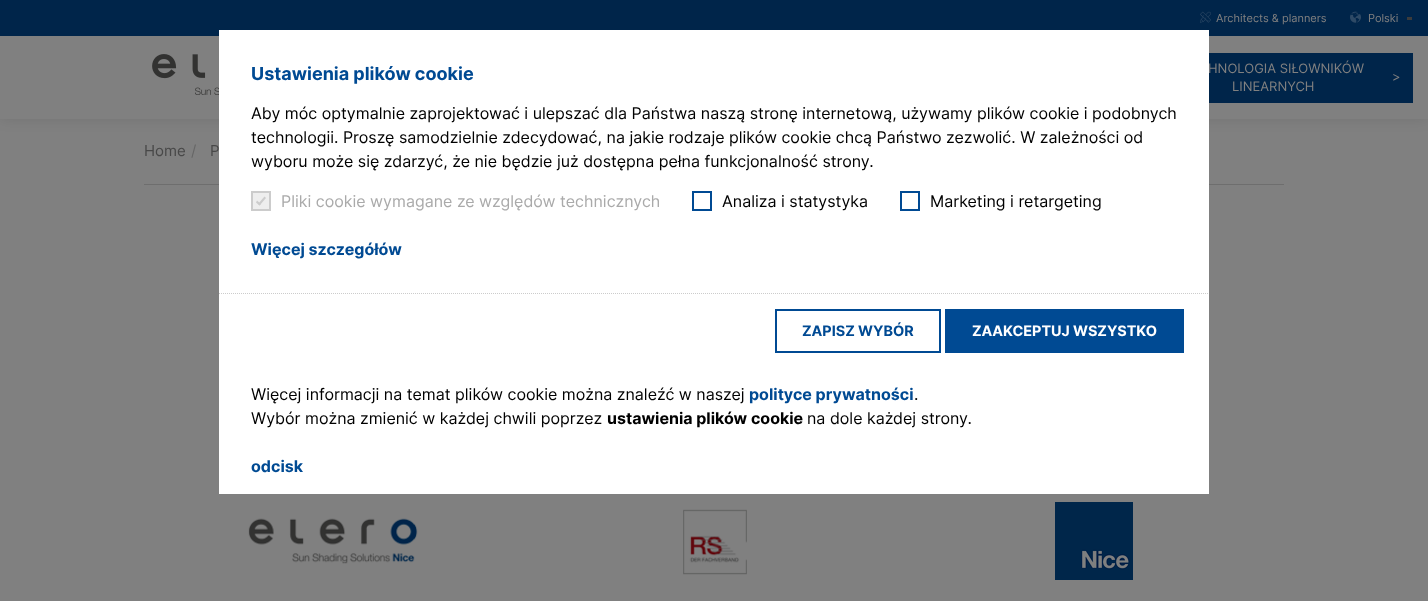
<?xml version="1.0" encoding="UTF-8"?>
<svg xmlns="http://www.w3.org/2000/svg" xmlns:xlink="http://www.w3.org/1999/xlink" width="1428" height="601">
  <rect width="100%" height="100%" fill="#808080" />
  <rect width="1428" height="119" fill="#000000" fill-opacity="0.1" filter="blur(7px)" />
  <rect width="1428" height="36" fill="#00254a" />
  <image x="1200" y="11" width="11" height="12" xlink:href="image1.png" />
  <image x="1350" y="11" width="11" height="12" xlink:href="image2.png" />
  <rect x="1407" y="17" width="5" height="3" fill="#3c3c3c" />
  <rect y="36" width="1428" height="83" fill="#808080" />
  <image x="152" y="54" width="67" height="41" xlink:href="image3.png" />
  <rect x="1209" y="53" width="204" height="50" fill="#00254a" />
  <rect x="144" y="184" width="1140" height="1" fill="#6e6e6e" />
  <image x="248" y="518" width="170" height="46" xlink:href="image4.png" />
  <image x="683" y="509" width="64" height="66" xlink:href="image5.png" />
  <image x="1055" y="502" width="78" height="78" xlink:href="image6.png" />
  <rect x="219" y="30" width="990" height="464" fill="#ffffff" />
  <rect x="252" y="192" width="18" height="18" fill="#eeeeee" stroke="#cccccc" stroke-width="2" />
  <path d="M 258 204 l 6.5 -7.5 l 1.5 1.5 l -6.5 7.5 z" fill="#cccccc" />
  <path d="M 256 202.5 l 1 -2 l 4 3.5 l -1.5 1.5 z" fill="#cccccc" />
  <rect x="693" y="192" width="18" height="18" fill="none" stroke="#004a93" stroke-width="2" />
  <rect x="901" y="192" width="18" height="18" fill="none" stroke="#004a93" stroke-width="2" />
  <path d="M 219 293.5 h 990" fill="none" stroke="#cccccc" stroke-dasharray="1 1" />
  <rect x="776" y="310" width="164" height="42" fill="none" stroke="#004a93" stroke-width="2" />
  <rect x="945" y="309" width="239" height="44" fill="#004a93" />
  <text x="1216" y="22" style="font-family: Inter; font-size: 11px; fill: #808080">Architects &amp; planners</text>
  <text x="1368" y="22" style="font-family: Inter; font-size: 11px; fill: #808080">Polski</text>
  <text x="1208" y="73" style="font-family: Inter; font-size: 13px; fill: #808080">HNOLOGIA SIŁOWNIKÓW</text>
  <text x="1392" y="81" style="font-family: Inter; font-size: 13px; fill: #808080">&gt;</text>
  <text x="1232" y="91" style="font-family: Inter; font-size: 13px; fill: #808080">LINEARNYCH</text>
  <text x="144" y="156" style="font-family: Inter; font-size: 15px; fill: #484848">Home</text>
  <text x="191" y="156" style="font-family: Inter; font-size: 15px; fill: #666666">/</text>
  <text x="210" y="156" style="font-family: Inter; font-size: 15px; fill: #484848">P</text>
  <text x="251" y="80" style="font-family: Inter; font-size: 18px; font-weight: bold; fill: #004a93">Ustawienia plików cookie</text>
  <text x="251" y="119" style="font-family: Inter; font-size: 16px; fill: #000000">Aby móc optymalnie zaprojektować i ulepszać dla Państwa naszą stronę internetową, używamy plików cookie i podobnych</text>
  <text x="251" y="143" style="font-family: Inter; font-size: 16px; fill: #000000">technologii. Proszę samodzielnie zdecydować, na jakie rodzaje plików cookie chcą Państwo zezwolić. W zależności od</text>
  <text x="251" y="167" style="font-family: Inter; font-size: 16px; fill: #000000">wyboru może się zdarzyć, że nie będzie już dostępna pełna funkcjonalność strony.</text>
  <text x="281" y="207" style="font-family: Inter; font-size: 16px; fill: #aaaaaa">Pliki cookie wymagane ze względów technicznych</text>
  <text x="722" y="207" style="font-family: Inter; font-size: 16px; fill: #000000">Analiza i statystyka</text>
  <text x="930" y="207" style="font-family: Inter; font-size: 16px; fill: #000000">Marketing i retargeting</text>
  <text x="251" y="255" style="font-family: Inter; font-size: 16px; font-weight: bold; fill: #004a93">Więcej szczegółów</text>
  <text x="802" y="336" style="font-family: Inter; font-size: 14.4px; font-weight: bold; fill: #004a93">ZAPISZ WYBÓR</text>
  <text x="972" y="336" style="font-family: Inter; font-size: 14.4px; font-weight: bold; fill: #ffffff">ZAAKCEPTUJ WSZYSTKO</text>
  <text x="251" y="400" style="font-family: Inter; font-size: 16px; fill: #000000">Więcej informacji na temat plików cookie można znaleźć w naszej</text>
  <text x="749" y="400" style="font-family: Inter; font-size: 16px; font-weight: bold; fill: #004a93">polityce prywatności</text>
  <text x="914" y="400" style="font-family: Inter; font-size: 16px; fill: #000000">.</text>
  <text x="251" y="424" style="font-family: Inter; font-size: 16px; fill: #000000">Wybór można zmienić w każdej chwili poprzez</text>
  <text x="607" y="424" style="font-family: Inter; font-size: 16px; font-weight: bold; fill: #000000">ustawienia plików cookie</text>
  <text x="807" y="424" style="font-family: Inter; font-size: 16px; fill: #000000">na dole każdej strony.</text>
  <text x="251" y="472" style="font-family: Inter; font-size: 16px; font-weight: bold; fill: #004a93">odcisk</text>
</svg>
